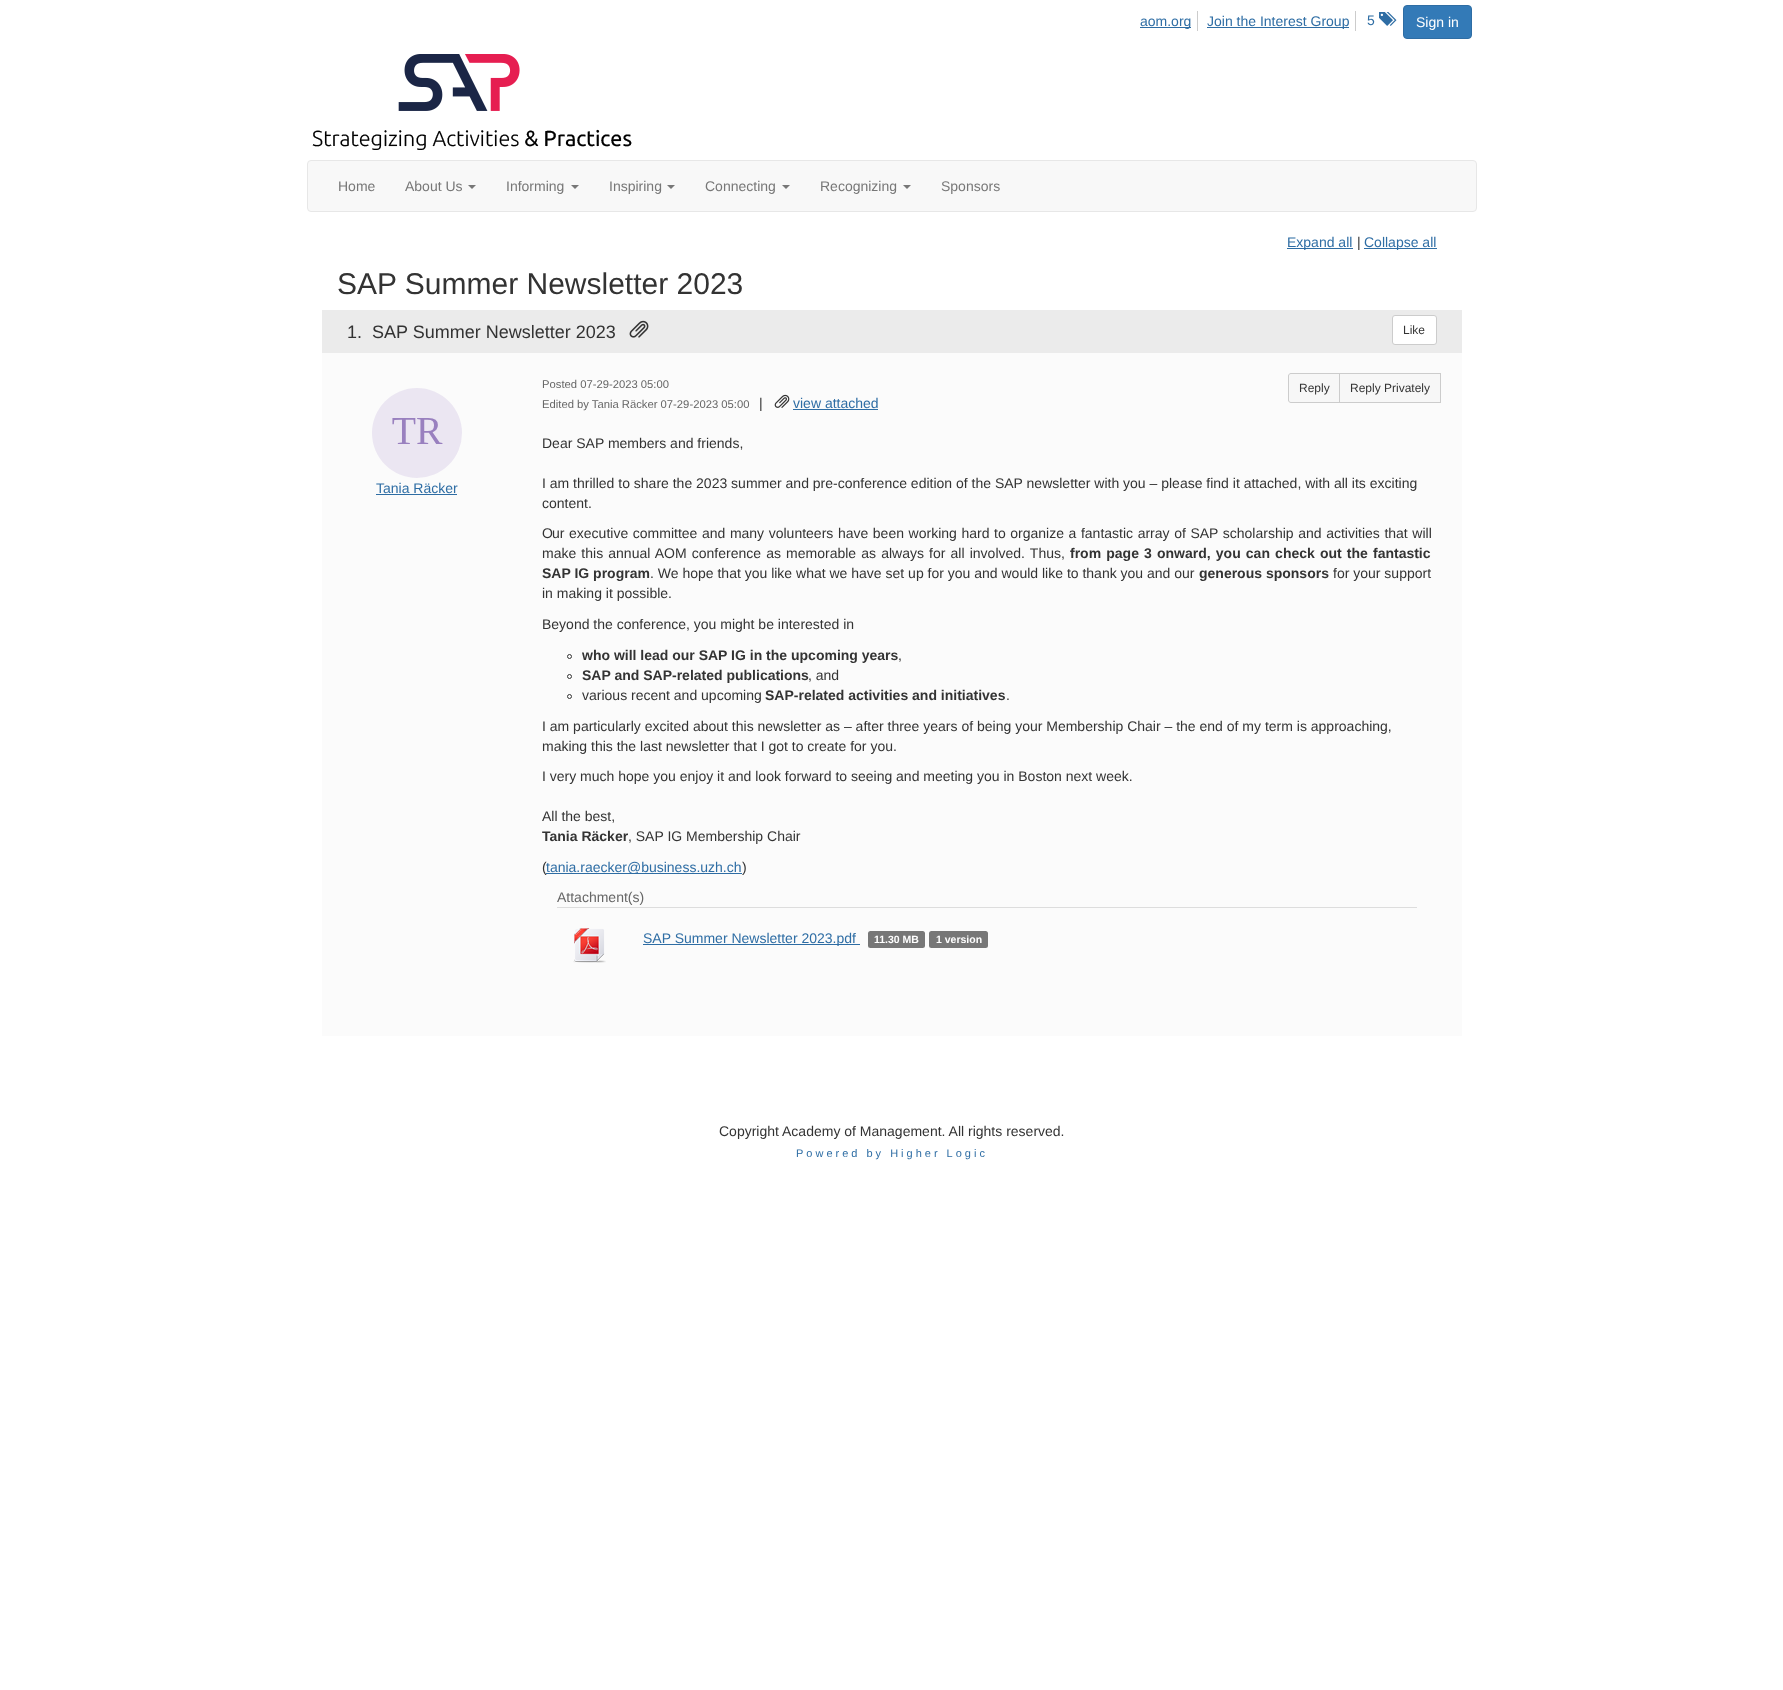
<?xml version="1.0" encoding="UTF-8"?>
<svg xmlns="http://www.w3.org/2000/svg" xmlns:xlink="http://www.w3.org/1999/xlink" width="1783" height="1690">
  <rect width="100%" height="100%" fill="#ffffff" />
  <rect x="1197" y="11" width="1" height="20" fill="#cccccc" />
  <rect x="1140" y="27" width="51" height="1" fill="#2e6da4" />
  <rect x="1355" y="11" width="1" height="20" fill="#cccccc" />
  <rect x="1207" y="27" width="142" height="1" fill="#2e6da4" />
  <image x="1379" y="12" width="18" height="14" xlink:href="image1.png" />
  <rect x="1403.5" y="5.5" width="68" height="33" rx="3.5" fill="#337ab7" stroke="#2e6da4" />
  <image x="312" y="54" width="320" height="96" xlink:href="image2.png" />
  <rect x="307.5" y="160.5" width="1169" height="51" rx="3.5" fill="#f8f8f8" stroke="#e7e7e7" />
  <path d="M 468 185 h 8 l -4 4 z" fill="#777777" />
  <path d="M 571 185 h 8 l -4 4 z" fill="#777777" />
  <path d="M 667 185 h 8 l -4 4 z" fill="#777777" />
  <path d="M 782 185 h 8 l -4 4 z" fill="#777777" />
  <path d="M 903 185 h 8 l -4 4 z" fill="#777777" />
  <rect x="1287" y="248" width="66" height="1" fill="#2e6da4" />
  <rect x="1364" y="248" width="73" height="1" fill="#2e6da4" />
  <rect x="322" y="353" width="1140" height="683" fill="#fbfbfb" />
  <rect x="322" y="310" width="1140" height="43" fill="#ebebeb" />
  <image x="629" y="320" width="20" height="18" xlink:href="image3.png" />
  <rect x="1392.5" y="315.5" width="44" height="29" rx="2.5" fill="#ffffff" stroke="#cccccc" />
  <image x="372" y="388" width="90" height="90" xlink:href="image4.png" />
  <rect x="376" y="494" width="81" height="1" fill="#2e6da4" />
  <image x="774" y="394" width="16" height="14" xlink:href="image5.png" />
  <rect x="793" y="409" width="85" height="1" fill="#2e6da4" />
  <path d="M 1291 373.5 h 48.5 v 29 h -48.5 c -1.5 0 -2.5 -1 -2.5 -2.5 v -24 c 0 -1.5 1 -2.5 2.5 -2.5 z" fill="#f7f7f7" stroke="#cccccc" />
  <rect x="1339.5" y="373.5" width="101" height="29" fill="#f7f7f7" stroke="#cccccc" />
  <circle cx="569.5" cy="656.5" r="2" fill="none" stroke="#333333" />
  <circle cx="569.5" cy="676.5" r="2" fill="none" stroke="#333333" />
  <circle cx="569.5" cy="696.5" r="2" fill="none" stroke="#333333" />
  <rect x="557" y="907" width="860" height="1" fill="#dddddd" />
  <image x="573" y="928" width="33" height="35" xlink:href="image6.png" />
  <rect x="643" y="944" width="217" height="1" fill="#2e6da4" />
  <rect x="868" y="931" width="57" height="17" rx="2.5" fill="#777777" />
  <rect x="929" y="931" width="59" height="17" rx="2.5" fill="#777777" />
  <text x="1140" y="26" style="font-family: Liberation Sans; font-size: 14px; fill: #2e6da4">aom.org</text>
  <text x="1207" y="26" style="font-family: Liberation Sans; font-size: 14px; fill: #2e6da4">Join the Interest Group</text>
  <text x="1367" y="25" style="font-family: Liberation Sans; font-size: 14px; fill: #2e6da4">5</text>
  <text x="1416" y="27" style="font-family: Liberation Sans; font-size: 14px; fill: #ffffff">Sign in</text>
  <text x="338" y="191" style="font-family: Liberation Sans; font-size: 14px; fill: #777777">Home</text>
  <text x="405" y="191" style="font-family: Liberation Sans; font-size: 14px; fill: #777777">About Us</text>
  <text x="506" y="191" style="font-family: Liberation Sans; font-size: 14px; fill: #777777">Informing</text>
  <text x="609" y="191" style="font-family: Liberation Sans; font-size: 14px; fill: #777777">Inspiring</text>
  <text x="705" y="191" style="font-family: Liberation Sans; font-size: 14px; fill: #777777">Connecting</text>
  <text x="820" y="191" style="font-family: Liberation Sans; font-size: 14px; fill: #777777">Recognizing</text>
  <text x="941" y="191" style="font-family: Liberation Sans; font-size: 14px; fill: #777777">Sponsors</text>
  <text x="1287" y="247" style="font-family: Liberation Sans; font-size: 14px; fill: #2e6da4">Expand all</text>
  <text x="1357" y="247" style="font-family: Liberation Sans; font-size: 14px; fill: #333333">|</text>
  <text x="1364" y="247" style="font-family: Liberation Sans; font-size: 14px; fill: #2e6da4">Collapse all</text>
  <text x="337" y="294" style="font-family: Liberation Sans; font-size: 30px; fill: #333333">SAP Summer Newsletter 2023</text>
  <text x="347" y="338" style="font-family: Liberation Sans; font-size: 18px; fill: #333333">1.</text>
  <text x="372" y="338" style="font-family: Liberation Sans; font-size: 18px; fill: #333333">SAP Summer Newsletter 2023</text>
  <text x="1403" y="334" style="font-family: Liberation Sans; font-size: 12px; fill: #333333">Like</text>
  <text x="376" y="493" style="font-family: Liberation Sans; font-size: 14px; fill: #2e6da4">Tania Räcker</text>
  <text x="542" y="388" style="font-family: Liberation Sans; font-size: 11.25px; fill: #666666">Posted 07-29-2023 05:00</text>
  <text x="542" y="408" style="font-family: Liberation Sans; font-size: 11.25px; fill: #666666">Edited by Tania Räcker 07-29-2023 05:00</text>
  <text x="759" y="408" style="font-family: Liberation Sans; font-size: 14px; fill: #333333">|</text>
  <text x="793" y="408" style="font-family: Liberation Sans; font-size: 14px; fill: #2e6da4">view attached</text>
  <text x="1299" y="392" style="font-family: Liberation Sans; font-size: 12px; fill: #333333">Reply</text>
  <text x="1350" y="392" style="font-family: Liberation Sans; font-size: 12px; fill: #333333">Reply Privately</text>
  <text x="542" y="448" style="font-family: Liberation Sans; font-size: 14px; fill: #333333">Dear SAP members and friends,</text>
  <text x="542" y="488" style="font-family: Liberation Sans; font-size: 14px; fill: #333333">I am thrilled to share the 2023 summer and pre-conference edition of the SAP newsletter with you – please find it attached, with all its exciting</text>
  <text x="542" y="508" style="font-family: Liberation Sans; font-size: 14px; fill: #333333">content.</text>
  <text x="542" y="538" style="font-family: Liberation Sans; font-size: 14px; fill: #333333">O</text>
  <text x="552" y="538" word-spacing="0.7" style="font-family: Liberation Sans; font-size: 14px; fill: #333333">ur executive committee and many volunteers have been working hard to organize a fantastic array of SAP scholarship and activities that will</text>
  <text x="542" y="558" word-spacing="1.25" style="font-family: Liberation Sans; font-size: 14px; fill: #333333">make this annual AOM conference as memorable as always for all involved. Thus,</text>
  <text x="1070" y="558" word-spacing="1.25" style="font-family: Liberation Sans; font-size: 14px; font-weight: bold; fill: #333333">from page 3 onward, you can check out the fantastic</text>
  <text x="542" y="578" style="font-family: Liberation Sans; font-size: 14px; font-weight: bold; fill: #333333">SAP IG program</text>
  <text x="650" y="578" style="font-family: Liberation Sans; font-size: 14px; fill: #333333">. We hope that you like what we have set up for you and would like to thank you and our</text>
  <text x="1199" y="578" style="font-family: Liberation Sans; font-size: 14px; font-weight: bold; fill: #333333">generous sponsors</text>
  <text x="1333" y="578" style="font-family: Liberation Sans; font-size: 14px; fill: #333333">for your support</text>
  <text x="542" y="598" style="font-family: Liberation Sans; font-size: 14px; fill: #333333">in making it possible.</text>
  <text x="542" y="629" style="font-family: Liberation Sans; font-size: 14px; fill: #333333">Beyond the conference, you might be interested in</text>
  <text x="582" y="660" style="font-family: Liberation Sans; font-size: 14px; font-weight: bold; fill: #333333">who will lead our SAP IG in the upcoming years</text>
  <text x="898" y="660" style="font-family: Liberation Sans; font-size: 14px; fill: #333333">,</text>
  <text x="582" y="680" style="font-family: Liberation Sans; font-size: 14px; font-weight: bold; fill: #333333">SAP and SAP-related publications</text>
  <text x="808" y="680" style="font-family: Liberation Sans; font-size: 14px; fill: #333333">, and</text>
  <text x="582" y="700" style="font-family: Liberation Sans; font-size: 14px; fill: #333333">various recent and upcoming</text>
  <text x="765" y="700" style="font-family: Liberation Sans; font-size: 14px; font-weight: bold; fill: #333333">SAP-related activities and initiatives</text>
  <text x="1006" y="700" style="font-family: Liberation Sans; font-size: 14px; fill: #333333">.</text>
  <text x="542" y="731" style="font-family: Liberation Sans; font-size: 14px; fill: #333333">I am particularly excited about this newsletter as – after three years of being your Membership Chair – the end of my term is approaching,</text>
  <text x="542" y="751" style="font-family: Liberation Sans; font-size: 14px; fill: #333333">making this the last newsletter that I got to create for you.</text>
  <text x="542" y="781" style="font-family: Liberation Sans; font-size: 14px; fill: #333333">I very much hope you enjoy it and look forward to seeing and meeting you in Boston next week.</text>
  <text x="542" y="821" style="font-family: Liberation Sans; font-size: 14px; fill: #333333">All the best,</text>
  <text x="542" y="841" style="font-family: Liberation Sans; font-size: 14px; font-weight: bold; fill: #333333">Tania Räcker</text>
  <text x="628" y="841" style="font-family: Liberation Sans; font-size: 14px; fill: #333333">, SAP IG Membership Chair</text>
  <text x="542" y="872" style="font-family: Liberation Sans; font-size: 14px; fill: #333333">(</text>
  <rect x="546" y="873" width="196" height="1" fill="#2e6da4" />
  <text x="546" y="872" style="font-family: Liberation Sans; font-size: 14px; fill: #2e6da4">tania.raecker@business.uzh.ch</text>
  <text x="742" y="872" style="font-family: Liberation Sans; font-size: 14px; fill: #333333">)</text>
  <text x="557" y="902" style="font-family: Liberation Sans; font-size: 14px; fill: #666666">Attachment(s)</text>
  <text x="643" y="943" style="font-family: Liberation Sans; font-size: 14px; fill: #2e6da4">SAP Summer Newsletter 2023.pdf</text>
  <text x="874" y="943" style="font-family: Liberation Sans; font-size: 10.5px; font-weight: bold; fill: #ffffff">11.30 MB</text>
  <text x="936" y="943" style="font-family: Liberation Sans; font-size: 10.5px; font-weight: bold; fill: #ffffff">1 version</text>
  <text x="719" y="1136" style="font-family: Liberation Sans; font-size: 14px; fill: #333333">Copyright Academy of Management. All rights reserved.</text>
  <text x="796" y="1157" style="font-family: Liberation Sans; font-size: 11px; letter-spacing: 3px; fill: #2e6da4">Powered by Higher Logic</text>
</svg>
